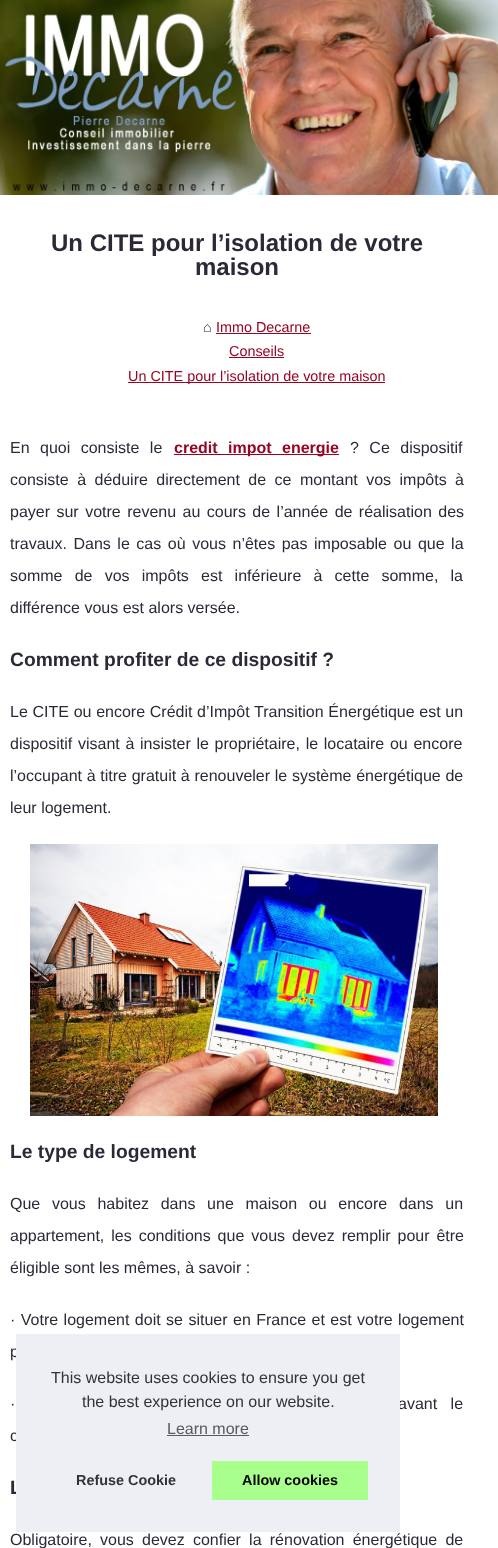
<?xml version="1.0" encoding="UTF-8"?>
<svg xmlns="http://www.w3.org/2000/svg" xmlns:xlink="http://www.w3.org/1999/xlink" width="498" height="1548">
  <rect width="100%" height="100%" fill="#ffffff" />
  <image x="0" y="0" width="498" height="195" xlink:href="image1.png" />
  <rect x="216" y="333" width="95" height="1" fill="#970424" />
  <rect x="229" y="357" width="55" height="1" fill="#970424" />
  <rect x="128" y="382" width="257" height="1" fill="#970424" />
  <rect x="174" y="454" width="165" height="1" fill="#970424" />
  <image x="30" y="844" width="408" height="272" xlink:href="image2.png" />
  <text x="51" y="251" style="font-family: Liberation Sans; font-size: 24px; font-weight: bold; fill: #2d2838">Un CITE pour l’isolation de votre</text>
  <text x="195" y="275" style="font-family: Liberation Sans; font-size: 24px; font-weight: bold; fill: #2d2838">maison</text>
  <text x="203" y="332" style="font-family: Liberation Sans; font-size: 14.4px; fill: #2d2838">⌂</text>
  <text x="216" y="332" style="font-family: Liberation Sans; font-size: 14.4px; fill: #970424">Immo Decarne</text>
  <text x="229" y="356" style="font-family: Liberation Sans; font-size: 14.4px; fill: #970424">Conseils</text>
  <text x="128" y="381" style="font-family: Liberation Sans; font-size: 14.4px; fill: #970424">Un CITE pour l’isolation de votre maison</text>
  <text x="10" y="453" word-spacing="6" style="font-family: Liberation Sans; font-size: 16px; fill: #2d2838">En quoi consiste le</text>
  <text x="174" y="453" word-spacing="6" style="font-family: Liberation Sans; font-size: 16px; font-weight: bold; fill: #970424">credit impot energie</text>
  <text x="350" y="453" word-spacing="6" style="font-family: Liberation Sans; font-size: 16px; fill: #2d2838">? Ce dispositif</text>
  <text x="10" y="485" word-spacing="4" style="font-family: Liberation Sans; font-size: 16px; fill: #2d2838">consiste à déduire directement de ce montant vos impôts à</text>
  <text x="10" y="517" word-spacing="2" style="font-family: Liberation Sans; font-size: 16px; fill: #2d2838">payer sur votre revenu au cours de l’année de réalisation des</text>
  <text x="10" y="549" word-spacing="2.1" style="font-family: Liberation Sans; font-size: 16px; fill: #2d2838">travaux. Dans le cas où vous n’êtes pas imposable ou que la</text>
  <text x="10" y="581" word-spacing="7.75" style="font-family: Liberation Sans; font-size: 16px; fill: #2d2838">somme de vos impôts est inférieure à cette somme, la</text>
  <text x="10" y="613" style="font-family: Liberation Sans; font-size: 16px; fill: #2d2838">différence vous est alors versée.</text>
  <text x="10" y="666" style="font-family: Liberation Sans; font-size: 19.25px; font-weight: bold; fill: #2d2838">Comment profiter de ce dispositif ?</text>
  <text x="10" y="717" word-spacing="0.25" style="font-family: Liberation Sans; font-size: 16px; fill: #2d2838">Le CITE ou encore Crédit d’Impôt Transition Énergétique est un</text>
  <text x="10" y="749" word-spacing="1.25" style="font-family: Liberation Sans; font-size: 16px; fill: #2d2838">dispositif visant à insister le propriétaire, le locataire ou encore</text>
  <text x="10" y="781" word-spacing="0.25" style="font-family: Liberation Sans; font-size: 16px; fill: #2d2838">l’occupant à titre gratuit à renouveler le système énergétique de</text>
  <text x="10" y="813" style="font-family: Liberation Sans; font-size: 16px; fill: #2d2838">leur logement.</text>
  <text x="10" y="1158" style="font-family: Liberation Sans; font-size: 19.25px; font-weight: bold; fill: #2d2838">Le type de logement</text>
  <text x="10" y="1209" word-spacing="7.25" style="font-family: Liberation Sans; font-size: 16px; fill: #2d2838">Que vous habitez dans une maison ou encore dans un</text>
  <text x="10" y="1241" word-spacing="2.5" style="font-family: Liberation Sans; font-size: 16px; fill: #2d2838">appartement, les conditions que vous devez remplir pour être</text>
  <text x="10" y="1273" style="font-family: Liberation Sans; font-size: 16px; fill: #2d2838">éligible sont les mêmes, à savoir :</text>
  <text x="10" y="1325" word-spacing="1" style="font-family: Liberation Sans; font-size: 16px; fill: #2d2838">· Votre logement doit se situer en France et est votre logement</text>
  <text x="10" y="1357" style="font-family: Liberation Sans; font-size: 16px; fill: #2d2838">p</text>
  <text x="10" y="1409" word-spacing="9" style="font-family: Liberation Sans; font-size: 16px; fill: #2d2838">·</text>
  <text x="398" y="1409" word-spacing="9" style="font-family: Liberation Sans; font-size: 16px; fill: #2d2838">avant le</text>
  <text x="10" y="1441" style="font-family: Liberation Sans; font-size: 16px; fill: #2d2838">c</text>
  <text x="10" y="1494" style="font-family: Liberation Sans; font-size: 19.25px; font-weight: bold; fill: #2d2838">L</text>
  <text x="10" y="1545" word-spacing="3.75" style="font-family: Liberation Sans; font-size: 16px; fill: #2d2838">Obligatoire, vous devez confier la rénovation énergétique de</text>
  <rect x="16" y="1334" width="384" height="198" fill="#edeff5" />
  <text x="51" y="1383" style="font-family: Liberation Sans; font-size: 16px; fill: #333333">This website uses cookies to ensure you get</text>
  <text x="82" y="1407" style="font-family: Liberation Sans; font-size: 16px; fill: #333333">the best experience on our website.</text>
  <text x="167" y="1434" style="font-family: Liberation Sans; font-size: 16px; fill: #58595a">Learn more</text>
  <rect x="167" y="1435" width="82" height="1" fill="#58595a" />
  <text x="76" y="1485" style="font-family: Liberation Sans; font-size: 14.4px; font-weight: bold; fill: #333333">Refuse Cookie</text>
  <rect x="212" y="1461" width="156" height="39" fill="#a8ff8c" />
  <text x="242" y="1485" style="font-family: Liberation Sans; font-size: 14.4px; font-weight: bold; fill: #000000">Allow cookies</text>
</svg>
